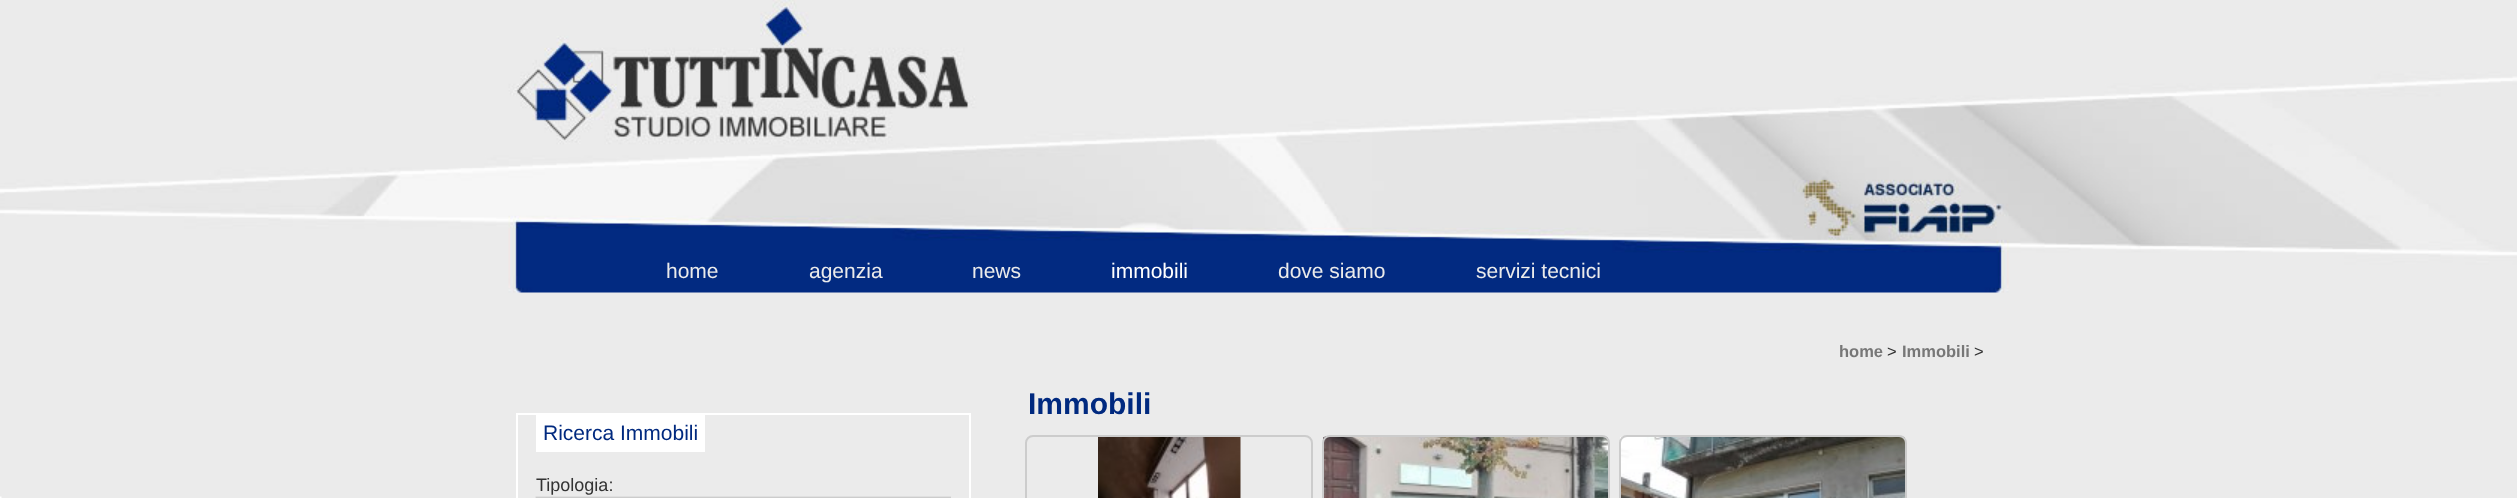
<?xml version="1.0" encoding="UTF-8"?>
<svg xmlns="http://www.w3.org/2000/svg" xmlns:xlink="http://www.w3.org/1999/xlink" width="2517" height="498">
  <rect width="100%" height="100%" fill="#ebebeb" />
  <image x="0" y="0" width="2517" height="293" xlink:href="image1.png" />
  <image x="1098" y="437" width="143" height="61" xlink:href="image2.png" />
  <rect x="1026" y="436" width="286" height="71" rx="7" fill="none" stroke="#cccccc" stroke-width="2" />
  <image x="1323" y="436" width="285" height="62" xlink:href="image3.png" />
  <rect x="1323" y="436" width="286" height="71" rx="7" fill="none" stroke="#cccccc" stroke-width="2" />
  <image x="1620" y="436" width="285" height="62" xlink:href="image4.png" />
  <rect x="1620" y="436" width="286" height="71" rx="7" fill="none" stroke="#cccccc" stroke-width="2" />
  <rect x="517" y="414" width="453" height="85" fill="none" stroke="#ffffff" stroke-width="2" />
  <rect x="536" y="415" width="169" height="37" fill="#ffffff" />
  <image x="535" y="496" width="416" height="2" xlink:href="image5.png" />
  <rect x="537" y="498" width="413" height="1" fill="none" stroke="#cccccc" stroke-width="2" />
  <image x="0" y="496" width="2" height="2" xlink:href="image6.png" />
  <text x="666" y="278" style="font-family: Liberation Sans; font-size: 21px; fill: #ebebeb">home</text>
  <text x="809" y="278" style="font-family: Liberation Sans; font-size: 21px; fill: #ebebeb">agenzia</text>
  <text x="972" y="278" style="font-family: Liberation Sans; font-size: 21px; fill: #ebebeb">news</text>
  <text x="1111" y="278" style="font-family: Liberation Sans; font-size: 21px; fill: #ffffff">immobili</text>
  <text x="1278" y="278" style="font-family: Liberation Sans; font-size: 21px; fill: #ebebeb">dove siamo</text>
  <text x="1476" y="278" style="font-family: Liberation Sans; font-size: 21px; fill: #ebebeb">servizi tecnici</text>
  <text x="1839" y="357" style="font-family: Liberation Sans; font-size: 16.5px; font-weight: bold; fill: #777777">home</text>
  <text x="1887" y="357" style="font-family: Liberation Sans; font-size: 16.5px; fill: #333333">&gt;</text>
  <text x="1902" y="357" style="font-family: Liberation Sans; font-size: 16.5px; font-weight: bold; fill: #777777">Immobili</text>
  <text x="1974" y="357" style="font-family: Liberation Sans; font-size: 16.5px; fill: #333333">&gt;</text>
  <text x="1028" y="414" style="font-family: Liberation Sans; font-size: 30px; font-weight: bold; fill: #00297f">Immobili</text>
  <text x="543" y="440" style="font-family: Liberation Sans; font-size: 21px; fill: #00297f">Ricerca Immobili</text>
  <text x="536" y="491" style="font-family: Liberation Sans; font-size: 18px; fill: #333333">Tipologia:</text>
</svg>
